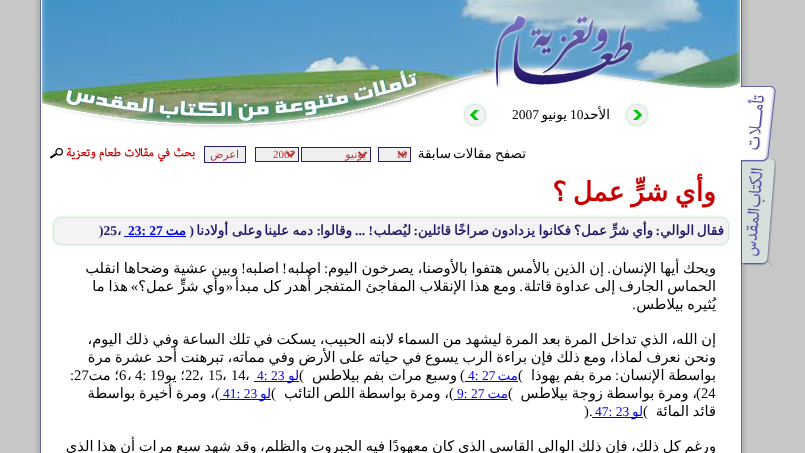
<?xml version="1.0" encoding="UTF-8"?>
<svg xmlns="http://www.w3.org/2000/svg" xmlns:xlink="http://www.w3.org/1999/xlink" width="805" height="453">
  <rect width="100%" height="100%" fill="#c7c7c7" />
  <image x="741" y="0" width="6" height="453" xlink:href="image1.png" />
  <image x="742" y="0" width="7" height="86" xlink:href="image2.png" />
  <image x="741" y="86" width="35" height="78" xlink:href="image3.png" />
  <image x="741" y="164" width="35" height="102" xlink:href="image4.png" />
  <image x="35" y="0" width="706" height="453" xlink:href="image5.png" />
  <image x="37" y="0" width="704" height="129" xlink:href="image6.png" />
  <image x="624" y="102" width="26" height="26" xlink:href="image7.png" />
  <image x="462" y="102" width="26" height="26" xlink:href="image8.png" />
  <rect x="378.5" y="147.5" width="32" height="14" fill="#efefef" stroke="#291d70" />
  <path d="M 398.5 152 l 4 4 l 4 -4" fill="none" stroke="#bd3333" stroke-width="2" />
  <rect x="301.5" y="147.5" width="69" height="14" fill="#efefef" stroke="#291d70" />
  <path d="M 358.5 152 l 4 4 l 4 -4" fill="none" stroke="#bd3333" stroke-width="2" />
  <rect x="255.5" y="147.5" width="43" height="14" fill="#efefef" stroke="#291d70" />
  <path d="M 286.5 152 l 4 4 l 4 -4" fill="none" stroke="#bd3333" stroke-width="2" />
  <rect x="204.5" y="146.5" width="41" height="16" fill="#efefef" stroke="#291d70" />
  <image x="50" y="147" width="145" height="15" xlink:href="image9.png" />
  <image x="51" y="215" width="680" height="8" xlink:href="image10.png" />
  <image x="51" y="223" width="680" height="16" xlink:href="image11.png" />
  <rect x="124" y="236" width="62" height="1" fill="#0000ee" />
  <image x="51" y="239" width="680" height="8" xlink:href="image12.png" />
  <rect x="465" y="381" width="53" height="1" fill="#0000ee" />
  <rect x="254" y="381" width="45" height="1" fill="#0000ee" />
  <rect x="454" y="399" width="54" height="1" fill="#0000ee" />
  <rect x="220" y="399" width="51" height="1" fill="#0000ee" />
  <rect x="592" y="417" width="51" height="1" fill="#0000ee" />
  <text x="610" y="119" style="font-family: DejaVu Sans; font-size: 13.5px; direction: rtl; fill: #000000">الأحد</text>
  <text x="570" y="119" style="font-family: Liberation Serif; font-size: 13.5px; fill: #000000">10</text>
  <text x="567" y="119" style="font-family: DejaVu Sans; font-size: 13.5px; direction: rtl; fill: #000000">يونيو</text>
  <text x="512" y="119" style="font-family: Liberation Serif; font-size: 13.5px; fill: #000000">2007</text>
  <text x="526" y="158" word-spacing="-1" style="font-family: DejaVu Sans; font-size: 13.5px; direction: rtl; fill: #000000">تصفح مقالات</text>
  <text x="451" y="158" style="font-family: DejaVu Sans; font-size: 13.5px; direction: rtl; fill: #000000">سابقة</text>
  <text x="396" y="158" style="font-family: Liberation Serif; font-size: 11px; fill: #bd3333">10</text>
  <text x="366" y="158" style="font-family: DejaVu Sans; font-size: 11px; direction: rtl; fill: #bd3333">يونيو</text>
  <text x="273" y="158" style="font-family: Liberation Serif; font-size: 11px; fill: #bd3333">2007</text>
  <text x="239" y="158" style="font-family: DejaVu Sans; font-size: 11px; direction: rtl; fill: #bd3333">اعرض</text>
  <text x="716" y="201" word-spacing="-2" style="font-family: DejaVu Sans; font-size: 26.75px; font-weight: bold; direction: rtl; fill: #ca0000">وأي شرٍّ عمل ؟</text>
  <text x="724" y="235" style="font-family: DejaVu Sans; font-size: 13.5px; font-weight: bold; direction: rtl; fill: #25176a">فقال</text>
  <text x="694" y="235" style="font-family: DejaVu Sans; font-size: 13.5px; font-weight: bold; direction: rtl; fill: #25176a">الوالي</text>
  <text x="660" y="235" style="font-family: Liberation Serif; font-size: 13.5px; font-weight: bold; direction: rtl; fill: #25176a">:</text>
  <text x="653" y="235" style="font-family: DejaVu Sans; font-size: 13.5px; font-weight: bold; direction: rtl; fill: #25176a">وأي</text>
  <text x="629" y="235" style="font-family: DejaVu Sans; font-size: 13.5px; font-weight: bold; direction: rtl; fill: #25176a">شرٍّ</text>
  <text x="607" y="235" style="font-family: DejaVu Sans; font-size: 13.5px; font-weight: bold; direction: rtl; fill: #25176a">عمل؟</text>
  <text x="571" y="235" style="font-family: DejaVu Sans; font-size: 13.5px; font-weight: bold; direction: rtl; fill: #25176a">فكانوا</text>
  <text x="535" y="235" style="font-family: DejaVu Sans; font-size: 13.5px; font-weight: bold; direction: rtl; fill: #25176a">يزدادون</text>
  <text x="489" y="235" style="font-family: DejaVu Sans; font-size: 13.5px; font-weight: bold; direction: rtl; fill: #25176a">صراخًا</text>
  <text x="451" y="235" style="font-family: DejaVu Sans; font-size: 13.5px; font-weight: bold; direction: rtl; fill: #25176a">قائلين</text>
  <text x="418" y="235" style="font-family: Liberation Serif; font-size: 13.5px; font-weight: bold; direction: rtl; fill: #25176a">:</text>
  <text x="411" y="235" style="font-family: DejaVu Sans; font-size: 13.5px; font-weight: bold; direction: rtl; fill: #25176a">ليُصلب</text>
  <text x="373" y="235" style="font-family: Liberation Serif; font-size: 13.5px; font-weight: bold; direction: rtl; fill: #25176a">! ...</text>
  <text x="352" y="235" style="font-family: DejaVu Sans; font-size: 13.5px; font-weight: bold; direction: rtl; fill: #25176a">وقالوا</text>
  <text x="321" y="235" style="font-family: Liberation Serif; font-size: 13.5px; font-weight: bold; direction: rtl; fill: #25176a">:</text>
  <text x="313" y="235" style="font-family: DejaVu Sans; font-size: 13.5px; font-weight: bold; direction: rtl; fill: #25176a">دمه</text>
  <text x="289" y="235" style="font-family: DejaVu Sans; font-size: 13.5px; font-weight: bold; direction: rtl; fill: #25176a">علينا</text>
  <text x="262" y="235" style="font-family: DejaVu Sans; font-size: 13.5px; font-weight: bold; direction: rtl; fill: #25176a">وعلى</text>
  <text x="228" y="235" style="font-family: DejaVu Sans; font-size: 13.5px; font-weight: bold; direction: rtl; fill: #25176a">أولادنا</text>
  <text x="194" y="235" style="font-family: Liberation Serif; font-size: 13.5px; font-weight: bold; direction: rtl; fill: #25176a">(</text>
  <text x="186" y="235" style="font-family: DejaVu Sans; font-size: 13.5px; font-weight: bold; direction: rtl; fill: #0000ee">مت</text>
  <text x="128" y="235" style="font-family: Liberation Serif; font-size: 13.5px; font-weight: bold; fill: #0000ee">23: 27</text>
  <text x="117" y="235" style="font-family: DejaVu Sans; font-size: 13.5px; font-weight: bold; fill: #25176a">،</text>
  <text x="99" y="235" style="font-family: Liberation Serif; font-size: 13.5px; font-weight: bold; fill: #25176a">)25</text>
  <text x="716" y="273" word-spacing="-1" style="font-family: DejaVu Sans; font-size: 14.65px; direction: rtl; fill: #000000">ويحك أيها الإنسان</text>
  <text x="328" y="273" style="font-family: Liberation Serif; font-size: 14.65px; direction: rtl; fill: #000000">:</text>
  <text x="321" y="273" style="font-family: DejaVu Sans; font-size: 14.65px; direction: rtl; fill: #000000">اصلبه</text>
  <text x="287" y="273" style="font-family: Liberation Serif; font-size: 14.65px; direction: rtl; fill: #000000">!</text>
  <text x="279" y="273" style="font-family: DejaVu Sans; font-size: 14.65px; direction: rtl; fill: #000000">اصلبه</text>
  <text x="246" y="273" style="font-family: Liberation Serif; font-size: 14.65px; direction: rtl; fill: #000000">!</text>
  <text x="238" y="273" word-spacing="-0.75" style="font-family: DejaVu Sans; font-size: 14.65px; direction: rtl; fill: #000000">وبين عشية وضحاها انقلب</text>
  <text x="611" y="273" style="font-family: Liberation Serif; font-size: 14.65px; direction: rtl; fill: #000000">.</text>
  <text x="604" y="273" word-spacing="-0.75" style="font-family: DejaVu Sans; font-size: 14.65px; direction: rtl; fill: #000000">إن الذين بالأمس هتفوا بالأوصنا، يصرخون اليوم</text>
  <text x="716" y="291" word-spacing="-1" style="font-family: DejaVu Sans; font-size: 14.65px; direction: rtl; fill: #000000">الحماس الجارف إلى عداوة قاتلة</text>
  <text x="523" y="291" style="font-family: Liberation Serif; font-size: 14.65px; direction: rtl; fill: #000000">.</text>
  <text x="516" y="291" word-spacing="-0.75" style="font-family: DejaVu Sans; font-size: 14.65px; direction: rtl; fill: #000000">ومع هذا الإنقلاب المفاجئ المتفجر أُهدر كل مبدأ</text>
  <text x="233" y="291" style="font-family: Liberation Serif; font-size: 14.65px; direction: rtl; fill: #000000">«</text>
  <text x="225" y="291" word-spacing="-0.75" style="font-family: DejaVu Sans; font-size: 14.65px; direction: rtl; fill: #000000">وأي شرٍّ عمل؟</text>
  <text x="138" y="291" style="font-family: Liberation Serif; font-size: 14.65px; direction: rtl; fill: #000000">»</text>
  <text x="128" y="291" word-spacing="-0.75" style="font-family: DejaVu Sans; font-size: 14.65px; direction: rtl; fill: #000000">هذا ما</text>
  <text x="716" y="309" word-spacing="-1" style="font-family: DejaVu Sans; font-size: 14.65px; direction: rtl; fill: #000000">يُثيره بيلاطس</text>
  <text x="636" y="309" style="font-family: Liberation Serif; font-size: 14.65px; direction: rtl; fill: #000000">.</text>
  <text x="716" y="344" word-spacing="-1" style="font-family: DejaVu Sans; font-size: 14.65px; direction: rtl; fill: #000000">إن الله، الذي تداخل المرة بعد المرة ليشهد من السماء لابنه الحبيب، يسكت في تلك الساعة وفي ذلك اليوم،</text>
  <text x="716" y="362" word-spacing="-1" style="font-family: DejaVu Sans; font-size: 14.65px; direction: rtl; fill: #000000">ونحن نعرف لماذا، ومع ذلك فإن براءة الرب يسوع في حياته على الأرض وفي مماته، تبرهنت أحد عشرة مرة</text>
  <text x="716" y="380" word-spacing="-1" style="font-family: DejaVu Sans; font-size: 14.65px; direction: rtl; fill: #000000">بواسطة الإنسان</text>
  <text x="619" y="380" style="font-family: Liberation Serif; font-size: 14.65px; direction: rtl; fill: #000000">:</text>
  <text x="612" y="380" word-spacing="-1" style="font-family: DejaVu Sans; font-size: 14.65px; direction: rtl; fill: #000000">مرة بفم يهوذا</text>
  <text x="518" y="380" style="font-family: Liberation Serif; font-size: 14.65px; fill: #000000">(</text>
  <text x="518" y="380" style="font-family: DejaVu Sans; font-size: 13.5px; direction: rtl; fill: #0000ee">مت</text>
  <text x="468" y="380" style="font-family: Liberation Serif; font-size: 13.5px; fill: #0000ee">4: 27</text>
  <text x="465" y="380" style="font-family: Liberation Serif; font-size: 14.65px; direction: rtl; fill: #000000">)</text>
  <text x="457" y="380" word-spacing="-1" style="font-family: DejaVu Sans; font-size: 14.65px; direction: rtl; fill: #000000">وسبع مرات بفم بيلاطس</text>
  <text x="299" y="380" style="font-family: Liberation Serif; font-size: 14.65px; fill: #000000">(</text>
  <text x="299" y="380" style="font-family: DejaVu Sans; font-size: 13.5px; direction: rtl; fill: #0000ee">لو</text>
  <text x="257" y="380" style="font-family: Liberation Serif; font-size: 13.5px; fill: #0000ee">4: 23</text>
  <text x="245" y="380" style="font-family: DejaVu Sans; font-size: 14.65px; fill: #000000">،</text>
  <text x="231" y="380" style="font-family: Liberation Serif; font-size: 14.65px; fill: #000000">14</text>
  <text x="222" y="380" style="font-family: DejaVu Sans; font-size: 14.65px; fill: #000000">،</text>
  <text x="208" y="380" style="font-family: Liberation Serif; font-size: 14.65px; fill: #000000">15</text>
  <text x="199" y="380" style="font-family: DejaVu Sans; font-size: 14.65px; fill: #000000">،</text>
  <text x="185" y="380" style="font-family: Liberation Serif; font-size: 14.65px; fill: #000000">22</text>
  <text x="135" y="380" style="font-family: Liberation Serif; font-size: 14.65px; fill: #000000">4: 19</text>
  <text x="185" y="380" word-spacing="-1" style="font-family: DejaVu Sans; font-size: 14.65px; direction: rtl; fill: #000000">؛ يو</text>
  <text x="127" y="380" style="font-family: DejaVu Sans; font-size: 14.65px; fill: #000000">،</text>
  <text x="119" y="380" word-spacing="-1" style="font-family: DejaVu Sans; font-size: 14.65px; direction: rtl; fill: #000000">؛ مت</text>
  <text x="119" y="380" style="font-family: Liberation Serif; font-size: 14.65px; fill: #000000">6</text>
  <text x="70" y="380" style="font-family: Liberation Serif; font-size: 14.65px; fill: #000000">:27</text>
  <text x="697" y="398" word-spacing="-1" style="font-family: DejaVu Sans; font-size: 14.65px; direction: rtl; fill: #000000">، ومرة بواسطة زوجة بيلاطس</text>
  <text x="449" y="398" word-spacing="-1" style="font-family: DejaVu Sans; font-size: 14.65px; direction: rtl; fill: #000000">، ومرة بواسطة اللص التائب</text>
  <text x="215" y="398" word-spacing="-1" style="font-family: DejaVu Sans; font-size: 14.65px; direction: rtl; fill: #000000">، ومرة أخيرة بواسطة</text>
  <text x="701" y="398" style="font-family: Liberation Serif; font-size: 14.65px; fill: #000000">24</text>
  <text x="701" y="398" style="font-family: Liberation Serif; font-size: 14.65px; direction: rtl; fill: #000000">)</text>
  <text x="508" y="398" style="font-family: Liberation Serif; font-size: 14.65px; fill: #000000">(</text>
  <text x="508" y="398" style="font-family: DejaVu Sans; font-size: 13.5px; direction: rtl; fill: #0000ee">مت</text>
  <text x="457" y="398" style="font-family: Liberation Serif; font-size: 13.5px; fill: #0000ee">9: 27</text>
  <text x="454" y="398" style="font-family: Liberation Serif; font-size: 14.65px; direction: rtl; fill: #000000">)</text>
  <text x="271" y="398" style="font-family: Liberation Serif; font-size: 14.65px; fill: #000000">(</text>
  <text x="271" y="398" style="font-family: DejaVu Sans; font-size: 13.5px; direction: rtl; fill: #0000ee">لو</text>
  <text x="223" y="398" style="font-family: Liberation Serif; font-size: 13.5px; fill: #0000ee">41: 23</text>
  <text x="220" y="398" style="font-family: Liberation Serif; font-size: 14.65px; direction: rtl; fill: #000000">)</text>
  <text x="716" y="416" word-spacing="-1" style="font-family: DejaVu Sans; font-size: 14.65px; direction: rtl; fill: #000000">قائد المائة</text>
  <text x="643" y="416" style="font-family: Liberation Serif; font-size: 14.65px; fill: #000000">(</text>
  <text x="643" y="416" style="font-family: DejaVu Sans; font-size: 13.5px; direction: rtl; fill: #0000ee">لو</text>
  <text x="595" y="416" style="font-family: Liberation Serif; font-size: 13.5px; fill: #0000ee">47: 23</text>
  <text x="584" y="416" style="font-family: Liberation Serif; font-size: 14.65px; fill: #000000">).</text>
  <text x="716" y="451" word-spacing="-1" style="font-family: DejaVu Sans; font-size: 14.65px; direction: rtl; fill: #000000">ورغم كل ذلك، فإن ذلك الوالي القاسي الذي كان معهودًا فيه الجبروت والظلم، وقد شهد سبع مرات أن هذا الذي</text>
</svg>
